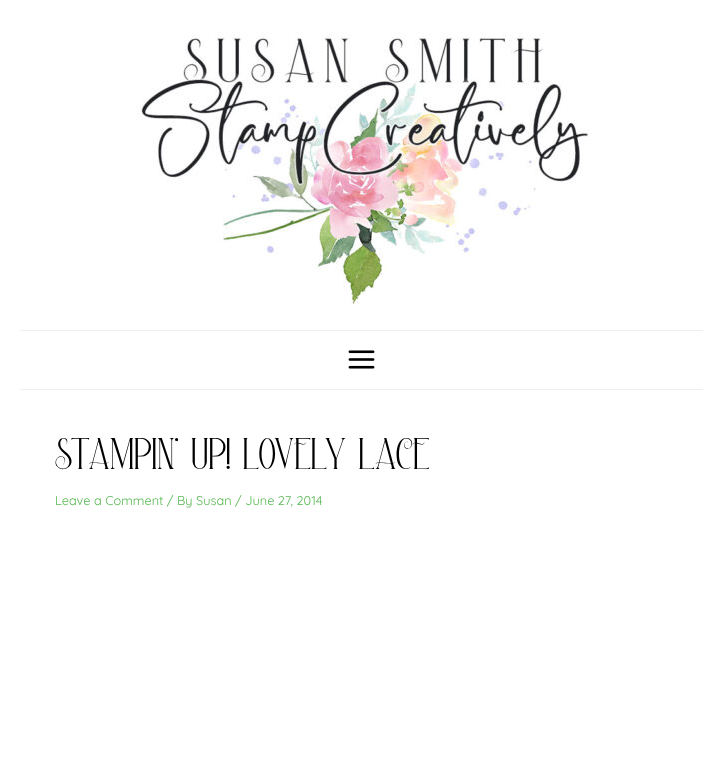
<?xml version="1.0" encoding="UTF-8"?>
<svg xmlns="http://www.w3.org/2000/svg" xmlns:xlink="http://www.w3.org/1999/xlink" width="723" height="764">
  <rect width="100%" height="100%" fill="#ffffff" />
  <image x="136" y="32" width="455" height="272" xlink:href="image1.png" />
  <rect x="20" y="330" width="683" height="1" fill="#efefef" />
  <rect x="20" y="389" width="683" height="1" fill="#efefef" />
  <image x="348" y="350" width="27" height="19" xlink:href="image2.png" />
  <text x="55" y="469" style="font-family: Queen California; font-size: 34.75px; fill: #000000">STAMPIN’ UP! LOVELY LACE</text>
  <text x="55" y="505" style="font-family: Quicksand; font-size: 12.75px; font-weight: 300; fill: #58b853">Leave a Comment / By Susan / June 27, 2014</text>
</svg>
